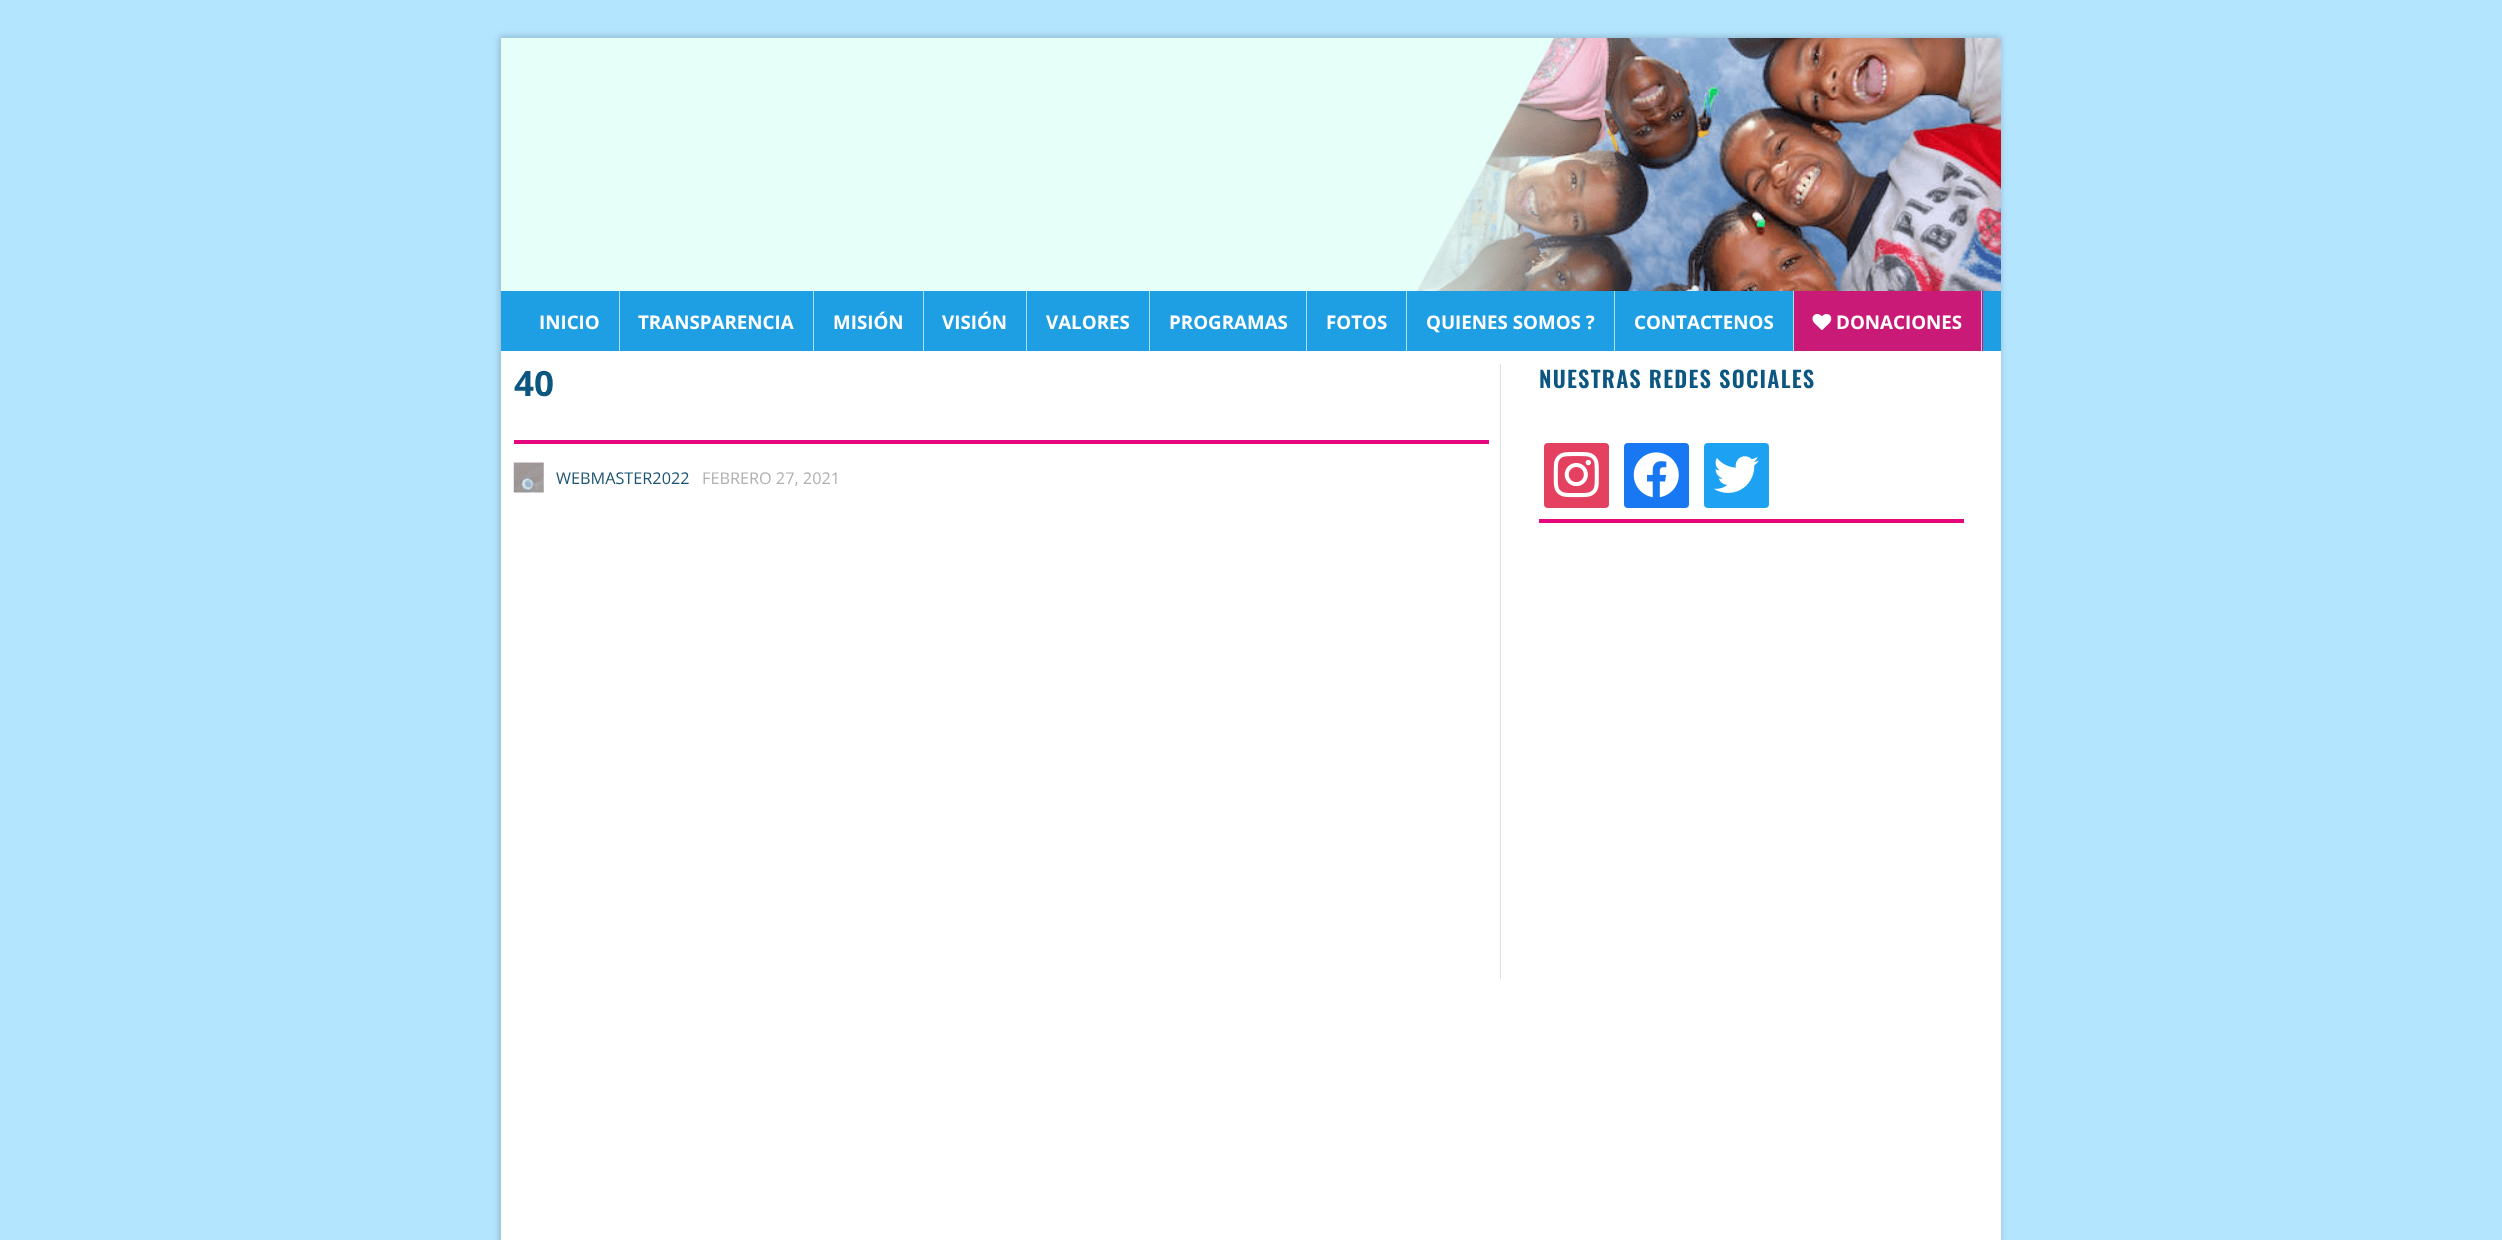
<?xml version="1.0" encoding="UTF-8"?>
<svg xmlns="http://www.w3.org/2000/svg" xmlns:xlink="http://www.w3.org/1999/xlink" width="2502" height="1240">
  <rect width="100%" height="100%" fill="#b4e5ff" />
  <rect x="499" y="36" width="1502" height="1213" fill="#000000" fill-opacity="0.18" filter="blur(3px)" />
  <rect x="501" y="351" width="1500" height="889" fill="#ffffff" />
  <image x="501" y="38" width="1500" height="253" xlink:href="image1.png" />
  <rect x="501" y="291" width="1500" height="60" fill="#1e9ee3" />
  <rect x="619" y="291" width="1" height="60" fill="#abe2f2" />
  <rect x="813" y="291" width="1" height="60" fill="#abe2f2" />
  <rect x="923" y="291" width="1" height="60" fill="#abe2f2" />
  <rect x="1026" y="291" width="1" height="60" fill="#abe2f2" />
  <rect x="1149" y="291" width="1" height="60" fill="#abe2f2" />
  <rect x="1306" y="291" width="1" height="60" fill="#abe2f2" />
  <rect x="1406" y="291" width="1" height="60" fill="#abe2f2" />
  <rect x="1614" y="291" width="1" height="60" fill="#abe2f2" />
  <rect x="1793" y="291" width="1" height="60" fill="#abe2f2" />
  <rect x="1794" y="291" width="189" height="60" fill="#ca1a77" />
  <rect x="1981" y="291" width="1" height="60" fill="#debad2" />
  <image x="1812" y="314" width="20" height="16" xlink:href="image2.png" />
  <rect x="514" y="440" width="975" height="4" fill="#e5077d" />
  <image x="513" y="462" width="31" height="31" xlink:href="image3.png" />
  <path d="M 1500 364 v 615 h 500 h -499 v -615 z" fill="#e1e1e1" />
  <rect x="1544" y="443" width="65" height="65" rx="4" fill="#e4405f" />
  <image x="1553" y="452" width="46" height="46" xlink:href="image4.png" />
  <rect x="1624" y="443" width="65" height="65" rx="4" fill="#1877f2" />
  <image x="1633" y="452" width="46" height="46" xlink:href="image5.png" />
  <rect x="1704" y="443" width="65" height="65" rx="4" fill="#1da1f2" />
  <image x="1714" y="456" width="45" height="37" xlink:href="image6.png" />
  <rect x="1539" y="519" width="425" height="4" fill="#e5077d" />
  <text x="539" y="329" style="font-family: Open Sans; font-size: 18.75px; font-weight: bold; fill: #ffffff">INICIO</text>
  <text x="638" y="329" style="font-family: Open Sans; font-size: 18.75px; font-weight: bold; fill: #ffffff">TRANSPARENCIA</text>
  <text x="833" y="329" style="font-family: Open Sans; font-size: 18.75px; font-weight: bold; fill: #ffffff">MISIÓN</text>
  <text x="942" y="329" style="font-family: Open Sans; font-size: 18.75px; font-weight: bold; fill: #ffffff">VISIÓN</text>
  <text x="1046" y="329" style="font-family: Open Sans; font-size: 18.75px; font-weight: bold; fill: #ffffff">VALORES</text>
  <text x="1169" y="329" style="font-family: Open Sans; font-size: 18.75px; font-weight: bold; fill: #ffffff">PROGRAMAS</text>
  <text x="1326" y="329" style="font-family: Open Sans; font-size: 18.75px; font-weight: bold; fill: #ffffff">FOTOS</text>
  <text x="1426" y="329" style="font-family: Open Sans; font-size: 18.75px; font-weight: bold; fill: #ffffff">QUIENES SOMOS ?</text>
  <text x="1634" y="329" style="font-family: Open Sans; font-size: 18.75px; font-weight: bold; fill: #ffffff">CONTACTENOS</text>
  <text x="1836" y="329" style="font-family: Open Sans; font-size: 18.75px; font-weight: bold; fill: #ffffff">DONACIONES</text>
  <text x="514" y="396" style="font-family: Open Sans; font-size: 35px; font-weight: bold; fill: #0c5781">40</text>
  <text x="556" y="484" style="font-family: Open Sans; font-size: 16.25px; fill: #1c5474">WEBMASTER2022</text>
  <text x="702" y="484" style="font-family: Open Sans; font-size: 16.25px; fill: #b0b0b0">FEBRERO 27, 2021</text>
  <text x="1539" y="388" style="font-family: Oswald; font-size: 22.5px; font-weight: 600; letter-spacing: 1.25px; fill: #0c5781">NUESTRAS REDES SOCIALES</text>
</svg>
